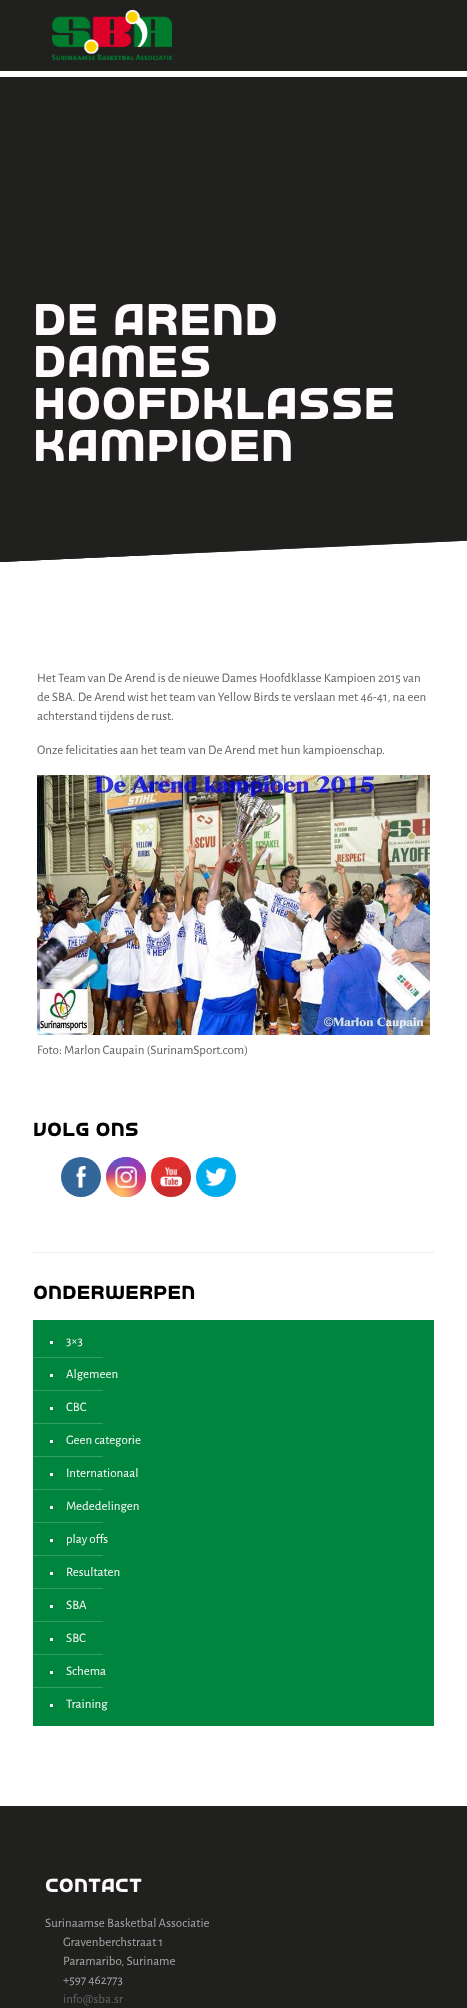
<?xml version="1.0" encoding="UTF-8"?>
<svg xmlns="http://www.w3.org/2000/svg" xmlns:xlink="http://www.w3.org/1999/xlink" width="467" height="2008">
  <defs>
    <linearGradient id="g1" gradientUnits="userSpaceOnUse" x1="126" y1="1157" x2="126" y2="1197"><stop offset="0" stop-color="#6559ca" /><stop offset="0.3" stop-color="#bc318f" /><stop offset="0.5" stop-color="#e33f5f" /><stop offset="0.7" stop-color="#f77638" /><stop offset="1" stop-color="#fec66d" /></linearGradient>
    <radialGradient id="g2" gradientUnits="userSpaceOnUse" cx="146" cy="1197" r="57"><stop offset="0" stop-color="#d9317a" /><stop offset="1" stop-color="#d9317a" stop-opacity="0" /></radialGradient>
    <radialGradient id="g3" gradientUnits="userSpaceOnUse" cx="0" cy="0" r="1" gradientTransform="matrix(34 0 0 68 130 1149)"><stop offset="0" stop-color="#893dc2" /><stop offset="0.5" stop-color="#893dc2" stop-opacity="0" /></radialGradient>
    <radialGradient id="g4" gradientUnits="userSpaceOnUse" cx="146" cy="1157" r="57"><stop offset="0" stop-color="#893dc2" /><stop offset="0.5" stop-color="#893dc2" stop-opacity="0" /></radialGradient>
    <radialGradient id="g5" gradientUnits="userSpaceOnUse" cx="0" cy="0" r="1" gradientTransform="matrix(45 0 0 85 114 1137)"><stop offset="0" stop-color="#5258cf" /><stop offset="0.5" stop-color="#5258cf" stop-opacity="0" /></radialGradient>
    <radialGradient id="g6" gradientUnits="userSpaceOnUse" cx="0" cy="0" r="1" gradientTransform="matrix(57 0 0 71 106 1147)"><stop offset="0" stop-color="#5258cf" /><stop offset="0.5" stop-color="#5258cf" stop-opacity="0" /></radialGradient>
    <radialGradient id="g7" gradientUnits="userSpaceOnUse" cx="106" cy="1213" r="69"><stop offset="0" stop-color="#fec564" /><stop offset="0.5" stop-color="#fec564" stop-opacity="0" /></radialGradient>
    <radialGradient id="g8" gradientUnits="userSpaceOnUse" cx="120" cy="1193" r="44"><stop offset="0" stop-color="#fec564" /><stop offset="0.5" stop-color="#fec564" stop-opacity="0" /></radialGradient>
    <linearGradient id="g9" gradientUnits="userSpaceOnUse" x1="154" y1="1155" x2="188" y2="1199"><stop offset="0.14" stop-color="#e02f2f" /><stop offset="0.49" stop-color="#e02f2f" /><stop offset="0.49" stop-color="#c92a2a" /><stop offset="0.85" stop-color="#c92a2a" /></linearGradient>
  </defs>
  <rect width="100%" height="100%" fill="#ffffff" />
  <rect width="467" height="71" fill="#20211f" />
  <image x="52" y="10" width="120" height="50" xlink:href="image1.png" />
  <image x="0" y="77" width="467" height="485" xlink:href="image2.png" />
  <image x="37" y="775" width="393" height="260" xlink:href="image3.png" />
  <circle cx="81" cy="1177" r="20" fill="#336699" />
  <image x="76" y="1166" width="11" height="22" xlink:href="image4.png" />
  <circle cx="126" cy="1177" r="20" fill="url(#g1)" />
  <circle cx="126" cy="1177" r="20" fill="url(#g2)" />
  <circle cx="126" cy="1177" r="20" fill="url(#g3)" />
  <circle cx="126" cy="1177" r="20" fill="url(#g4)" />
  <circle cx="126" cy="1177" r="20" fill="url(#g5)" />
  <circle cx="126" cy="1177" r="20" fill="url(#g6)" />
  <circle cx="126" cy="1177" r="20" fill="url(#g7)" />
  <circle cx="126" cy="1177" r="20" fill="url(#g8)" />
  <image x="115" y="1166" width="22" height="22" xlink:href="image5.png" />
  <circle cx="171" cy="1177" r="20" fill="url(#g9)" />
  <image x="160" y="1167" width="22" height="20" xlink:href="image6.png" />
  <circle cx="216" cy="1177" r="20" fill="#00acec" />
  <image x="205" y="1167" width="22" height="20" xlink:href="image7.png" />
  <rect x="33" y="1252" width="401" height="1" fill="#ebebeb" />
  <rect x="33" y="1320" width="401" height="406" fill="#00853e" />
  <rect x="50" y="1341" width="3" height="3" fill="#ffffff" />
  <rect x="33" y="1357" width="70" height="1" fill="#339d65" />
  <rect x="50" y="1374" width="3" height="3" fill="#ffffff" />
  <rect x="33" y="1390" width="70" height="1" fill="#339d65" />
  <rect x="50" y="1407" width="3" height="3" fill="#ffffff" />
  <rect x="33" y="1423" width="70" height="1" fill="#339d65" />
  <rect x="50" y="1440" width="3" height="3" fill="#ffffff" />
  <rect x="33" y="1456" width="70" height="1" fill="#339d65" />
  <rect x="50" y="1473" width="3" height="3" fill="#ffffff" />
  <rect x="33" y="1489" width="70" height="1" fill="#339d65" />
  <rect x="50" y="1506" width="3" height="3" fill="#ffffff" />
  <rect x="33" y="1522" width="70" height="1" fill="#339d65" />
  <rect x="50" y="1539" width="3" height="3" fill="#ffffff" />
  <rect x="33" y="1555" width="70" height="1" fill="#339d65" />
  <rect x="50" y="1572" width="3" height="3" fill="#ffffff" />
  <rect x="33" y="1588" width="70" height="1" fill="#339d65" />
  <rect x="50" y="1605" width="3" height="3" fill="#ffffff" />
  <rect x="33" y="1621" width="70" height="1" fill="#339d65" />
  <rect x="50" y="1638" width="3" height="3" fill="#ffffff" />
  <rect x="33" y="1654" width="70" height="1" fill="#339d65" />
  <rect x="50" y="1671" width="3" height="3" fill="#ffffff" />
  <rect x="33" y="1687" width="70" height="1" fill="#339d65" />
  <rect x="50" y="1704" width="3" height="3" fill="#ffffff" />
  <rect y="1806" width="467" height="202" fill="#20211f" />
  <text x="33" y="335" style="font-family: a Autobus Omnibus; font-size: 42px; fill: #fffafb">De Arend</text>
  <text x="33" y="377" style="font-family: a Autobus Omnibus; font-size: 42px; fill: #fffafb">Dames</text>
  <text x="33" y="419" style="font-family: a Autobus Omnibus; font-size: 42px; fill: #fffafb">Hoofdklasse</text>
  <text x="33" y="461" style="font-family: a Autobus Omnibus; font-size: 42px; fill: #fffafb">Kampioen</text>
  <text x="37" y="682" style="font-family: Alegreya Sans; font-size: 13px; fill: #626262">Het Team van De Arend is de nieuwe Dames Hoofdklasse Kampioen 2015 van</text>
  <text x="37" y="701" style="font-family: Alegreya Sans; font-size: 13px; fill: #626262">de SBA. De Arend wist het team van Yellow Birds te verslaan met 46-41, na een</text>
  <text x="37" y="720" style="font-family: Alegreya Sans; font-size: 13px; fill: #626262">achterstand tijdens de rust.</text>
  <text x="37" y="754" style="font-family: Alegreya Sans; font-size: 13px; fill: #626262">Onze felicitaties aan het team van De Arend met hun kampioenschap.</text>
  <text x="37" y="1054" style="font-family: Alegreya Sans; font-size: 13px; fill: #626262">Foto: Marlon Caupain (SurinamSport.com)</text>
  <text x="33" y="1136" style="font-family: a Autobus Omnibus; font-size: 18px; fill: #000000">Volg Ons</text>
  <text x="33" y="1299" style="font-family: a Autobus Omnibus; font-size: 18px; fill: #000000">Onderwerpen</text>
  <text x="66" y="1345" style="font-family: Alegreya Sans; font-size: 13px; fill: #fffafb">3×3</text>
  <text x="66" y="1378" style="font-family: Alegreya Sans; font-size: 13px; fill: #fffafb">Algemeen</text>
  <text x="66" y="1411" style="font-family: Alegreya Sans; font-size: 13px; fill: #fffafb">CBC</text>
  <text x="66" y="1444" style="font-family: Alegreya Sans; font-size: 13px; fill: #fffafb">Geen categorie</text>
  <text x="66" y="1477" style="font-family: Alegreya Sans; font-size: 13px; fill: #fffafb">Internationaal</text>
  <text x="66" y="1510" style="font-family: Alegreya Sans; font-size: 13px; fill: #fffafb">Mededelingen</text>
  <text x="66" y="1543" style="font-family: Alegreya Sans; font-size: 13px; fill: #fffafb">play offs</text>
  <text x="66" y="1576" style="font-family: Alegreya Sans; font-size: 13px; fill: #fffafb">Resultaten</text>
  <text x="66" y="1609" style="font-family: Alegreya Sans; font-size: 13px; fill: #fffafb">SBA</text>
  <text x="66" y="1642" style="font-family: Alegreya Sans; font-size: 13px; fill: #fffafb">SBC</text>
  <text x="66" y="1675" style="font-family: Alegreya Sans; font-size: 13px; fill: #fffafb">Schema</text>
  <text x="66" y="1708" style="font-family: Alegreya Sans; font-size: 13px; fill: #fffafb">Training</text>
  <text x="45" y="1892" style="font-family: a Autobus Omnibus; font-size: 18px; fill: #fffafb">Contact</text>
  <text x="45" y="1927" style="font-family: Alegreya Sans; font-size: 13px; fill: #a6a6a6">Surinaamse Basketbal Associatie</text>
  <text x="63" y="1946" style="font-family: Alegreya Sans; font-size: 13px; fill: #a6a6a6">Gravenberchstraat 1</text>
  <text x="63" y="1965" style="font-family: Alegreya Sans; font-size: 13px; fill: #a6a6a6">Paramaribo, Suriname</text>
  <text x="63" y="1984" style="font-family: Alegreya Sans; font-size: 13px; fill: #a6a6a6">+597 462773</text>
  <text x="63" y="2003" style="font-family: Alegreya Sans; font-size: 13px; fill: #626262">info@sba.sr</text>
</svg>
